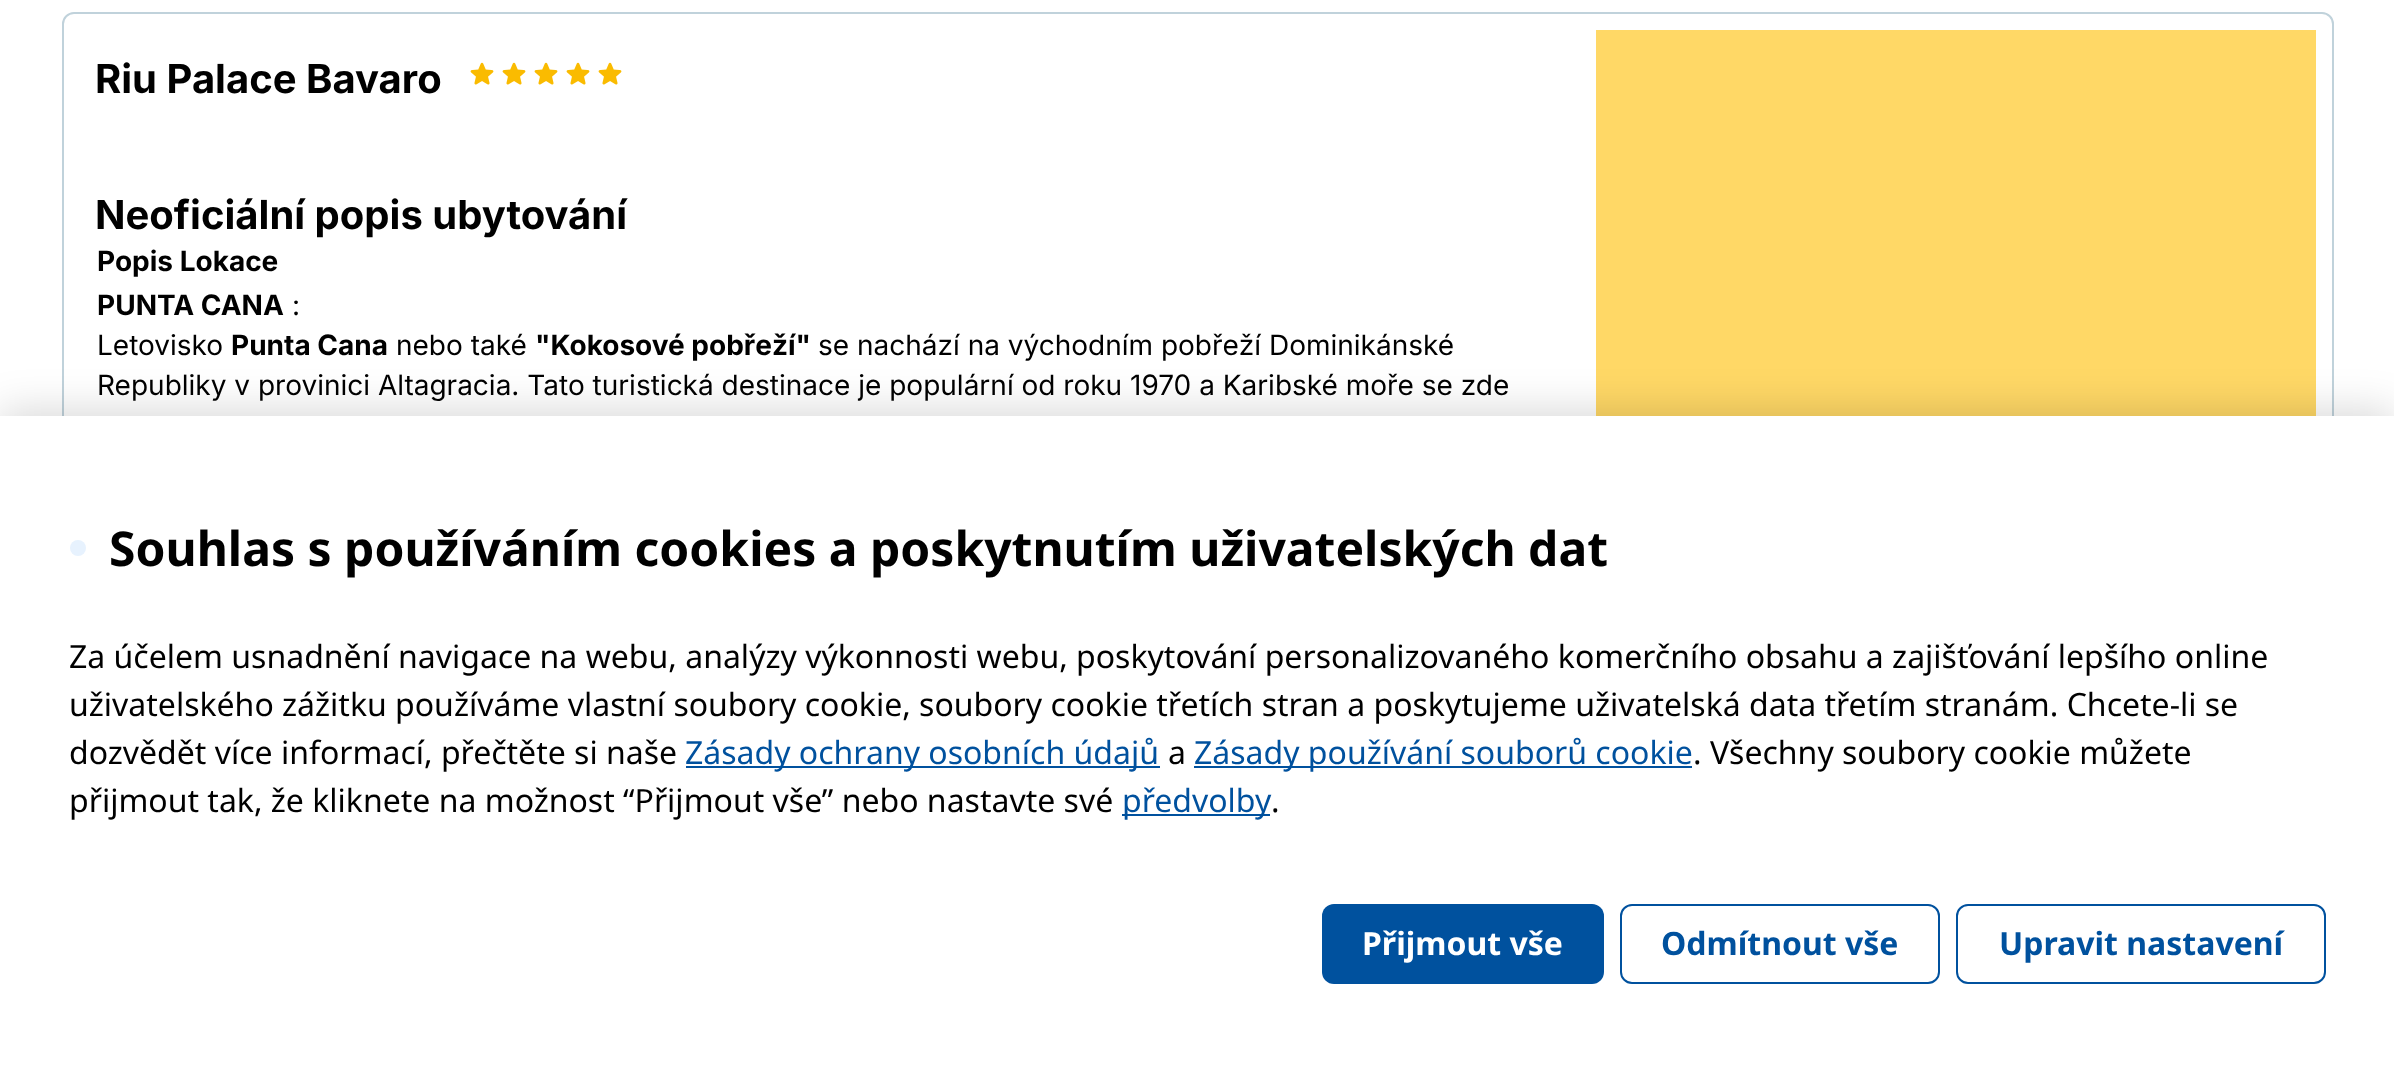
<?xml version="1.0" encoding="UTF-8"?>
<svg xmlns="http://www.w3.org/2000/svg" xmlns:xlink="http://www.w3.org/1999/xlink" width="2394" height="1077">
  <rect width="100%" height="100%" fill="#ffffff" />
  <rect x="63" y="13" width="2270" height="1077" rx="11" fill="none" stroke="#c0d2db" stroke-width="2" />
  <image x="470" y="62" width="24" height="23" xlink:href="image1.png" />
  <image x="502" y="62" width="24" height="23" xlink:href="image1.png" />
  <image x="534" y="62" width="24" height="23" xlink:href="image1.png" />
  <image x="566" y="62" width="24" height="23" xlink:href="image1.png" />
  <image x="598" y="62" width="24" height="23" xlink:href="image1.png" />
  <rect x="1596" y="30" width="720" height="386" fill="#ffd866" />
  <rect y="410" width="2394" height="664" fill="#000000" fill-opacity="0.15" filter="blur(20px)" />
  <rect y="416" width="2394" height="661" fill="#ffffff" />
  <circle cx="78" cy="548" r="8" fill="#e7f2fe" />
  <rect x="686" y="766" width="474" height="2" fill="#00519e" />
  <rect x="1194" y="766" width="498" height="2" fill="#00519e" />
  <rect x="1122" y="814" width="148" height="2" fill="#00519e" />
  <rect x="1322" y="904" width="282" height="80" rx="12" fill="#00519e" />
  <rect x="1621" y="905" width="318" height="78" rx="11" fill="none" stroke="#00519e" stroke-width="2" />
  <rect x="1957" y="905" width="368" height="78" rx="11" fill="none" stroke="#00519e" stroke-width="2" />
  <text x="95" y="93" style="font-family: Inter; font-size: 40px; font-weight: bold; fill: #000000">Riu Palace Bavaro</text>
  <text x="95" y="229" style="font-family: Inter; font-size: 40px; font-weight: bold; fill: #000000">Neoficiální popis ubytování</text>
  <text x="97" y="271" style="font-family: Inter; font-size: 28px; font-weight: bold; fill: #000000">Popis Lokace</text>
  <text x="97" y="315" style="font-family: Inter; font-size: 28px; font-weight: bold; fill: #000000">PUNTA CANA</text>
  <text x="292" y="315" style="font-family: Inter; font-size: 28px; fill: #000000">:</text>
  <text x="97" y="355" style="font-family: Inter; font-size: 28px; fill: #000000">Letovisko</text>
  <text x="231" y="355" style="font-family: Inter; font-size: 28px; font-weight: bold; fill: #000000">Punta Cana</text>
  <text x="396" y="355" style="font-family: Inter; font-size: 28px; fill: #000000">nebo také</text>
  <text x="535" y="355" style="font-family: Inter; font-size: 28px; font-weight: bold; fill: #000000">"Kokosové pobřeží"</text>
  <text x="818" y="355" style="font-family: Inter; font-size: 28px; fill: #000000">se nachází na východním pobřeží Dominikánské</text>
  <text x="97" y="395" style="font-family: Inter; font-size: 28px; fill: #000000">Republiky v provinici Altagracia. Tato turistická destinace je populární od roku 1970 a Karibské moře se zde</text>
  <text x="109" y="566" style="font-family: Noto Sans; font-size: 48px; font-weight: bold; fill: #000000">Souhlas s používáním cookies a poskytnutím uživatelských dat</text>
  <text x="69" y="668" style="font-family: Noto Sans; font-size: 32px; fill: #000000">Za účelem usnadnění navigace na webu, analýzy výkonnosti webu, poskytování personalizovaného komerčního obsahu a zajišťování lepšího online</text>
  <text x="69" y="716" style="font-family: Noto Sans; font-size: 32px; fill: #000000">uživatelského zážitku používáme vlastní soubory cookie, soubory cookie třetích stran a poskytujeme uživatelská data třetím stranám. Chcete-li se</text>
  <text x="69" y="764" style="font-family: Noto Sans; font-size: 32px; fill: #000000">dozvědět více informací, přečtěte si naše</text>
  <text x="685" y="764" style="font-family: Noto Sans; font-size: 32px; fill: #00519e">Zásady ochrany osobních údajů</text>
  <text x="1168" y="764" style="font-family: Noto Sans; font-size: 32px; fill: #000000">a</text>
  <text x="1194" y="764" style="font-family: Noto Sans; font-size: 32px; fill: #00519e">Zásady používání souborů cookie</text>
  <text x="1693" y="764" style="font-family: Noto Sans; font-size: 32px; fill: #000000">. Všechny soubory cookie můžete</text>
  <text x="69" y="812" style="font-family: Noto Sans; font-size: 32px; fill: #000000">přijmout tak, že kliknete na možnost “Přijmout vše” nebo nastavte své</text>
  <text x="1122" y="812" style="font-family: Noto Sans; font-size: 32px; fill: #00519e">předvolby</text>
  <text x="1271" y="812" style="font-family: Noto Sans; font-size: 32px; fill: #000000">.</text>
  <text x="1362" y="955" style="font-family: Noto Sans; font-size: 32px; font-weight: bold; fill: #ffffff">Přijmout vše</text>
  <text x="1661" y="955" style="font-family: Noto Sans; font-size: 32px; font-weight: bold; fill: #00519e">Odmítnout vše</text>
  <text x="1999" y="955" style="font-family: Noto Sans; font-size: 32px; font-weight: bold; fill: #00519e">Upravit nastavení</text>
</svg>
